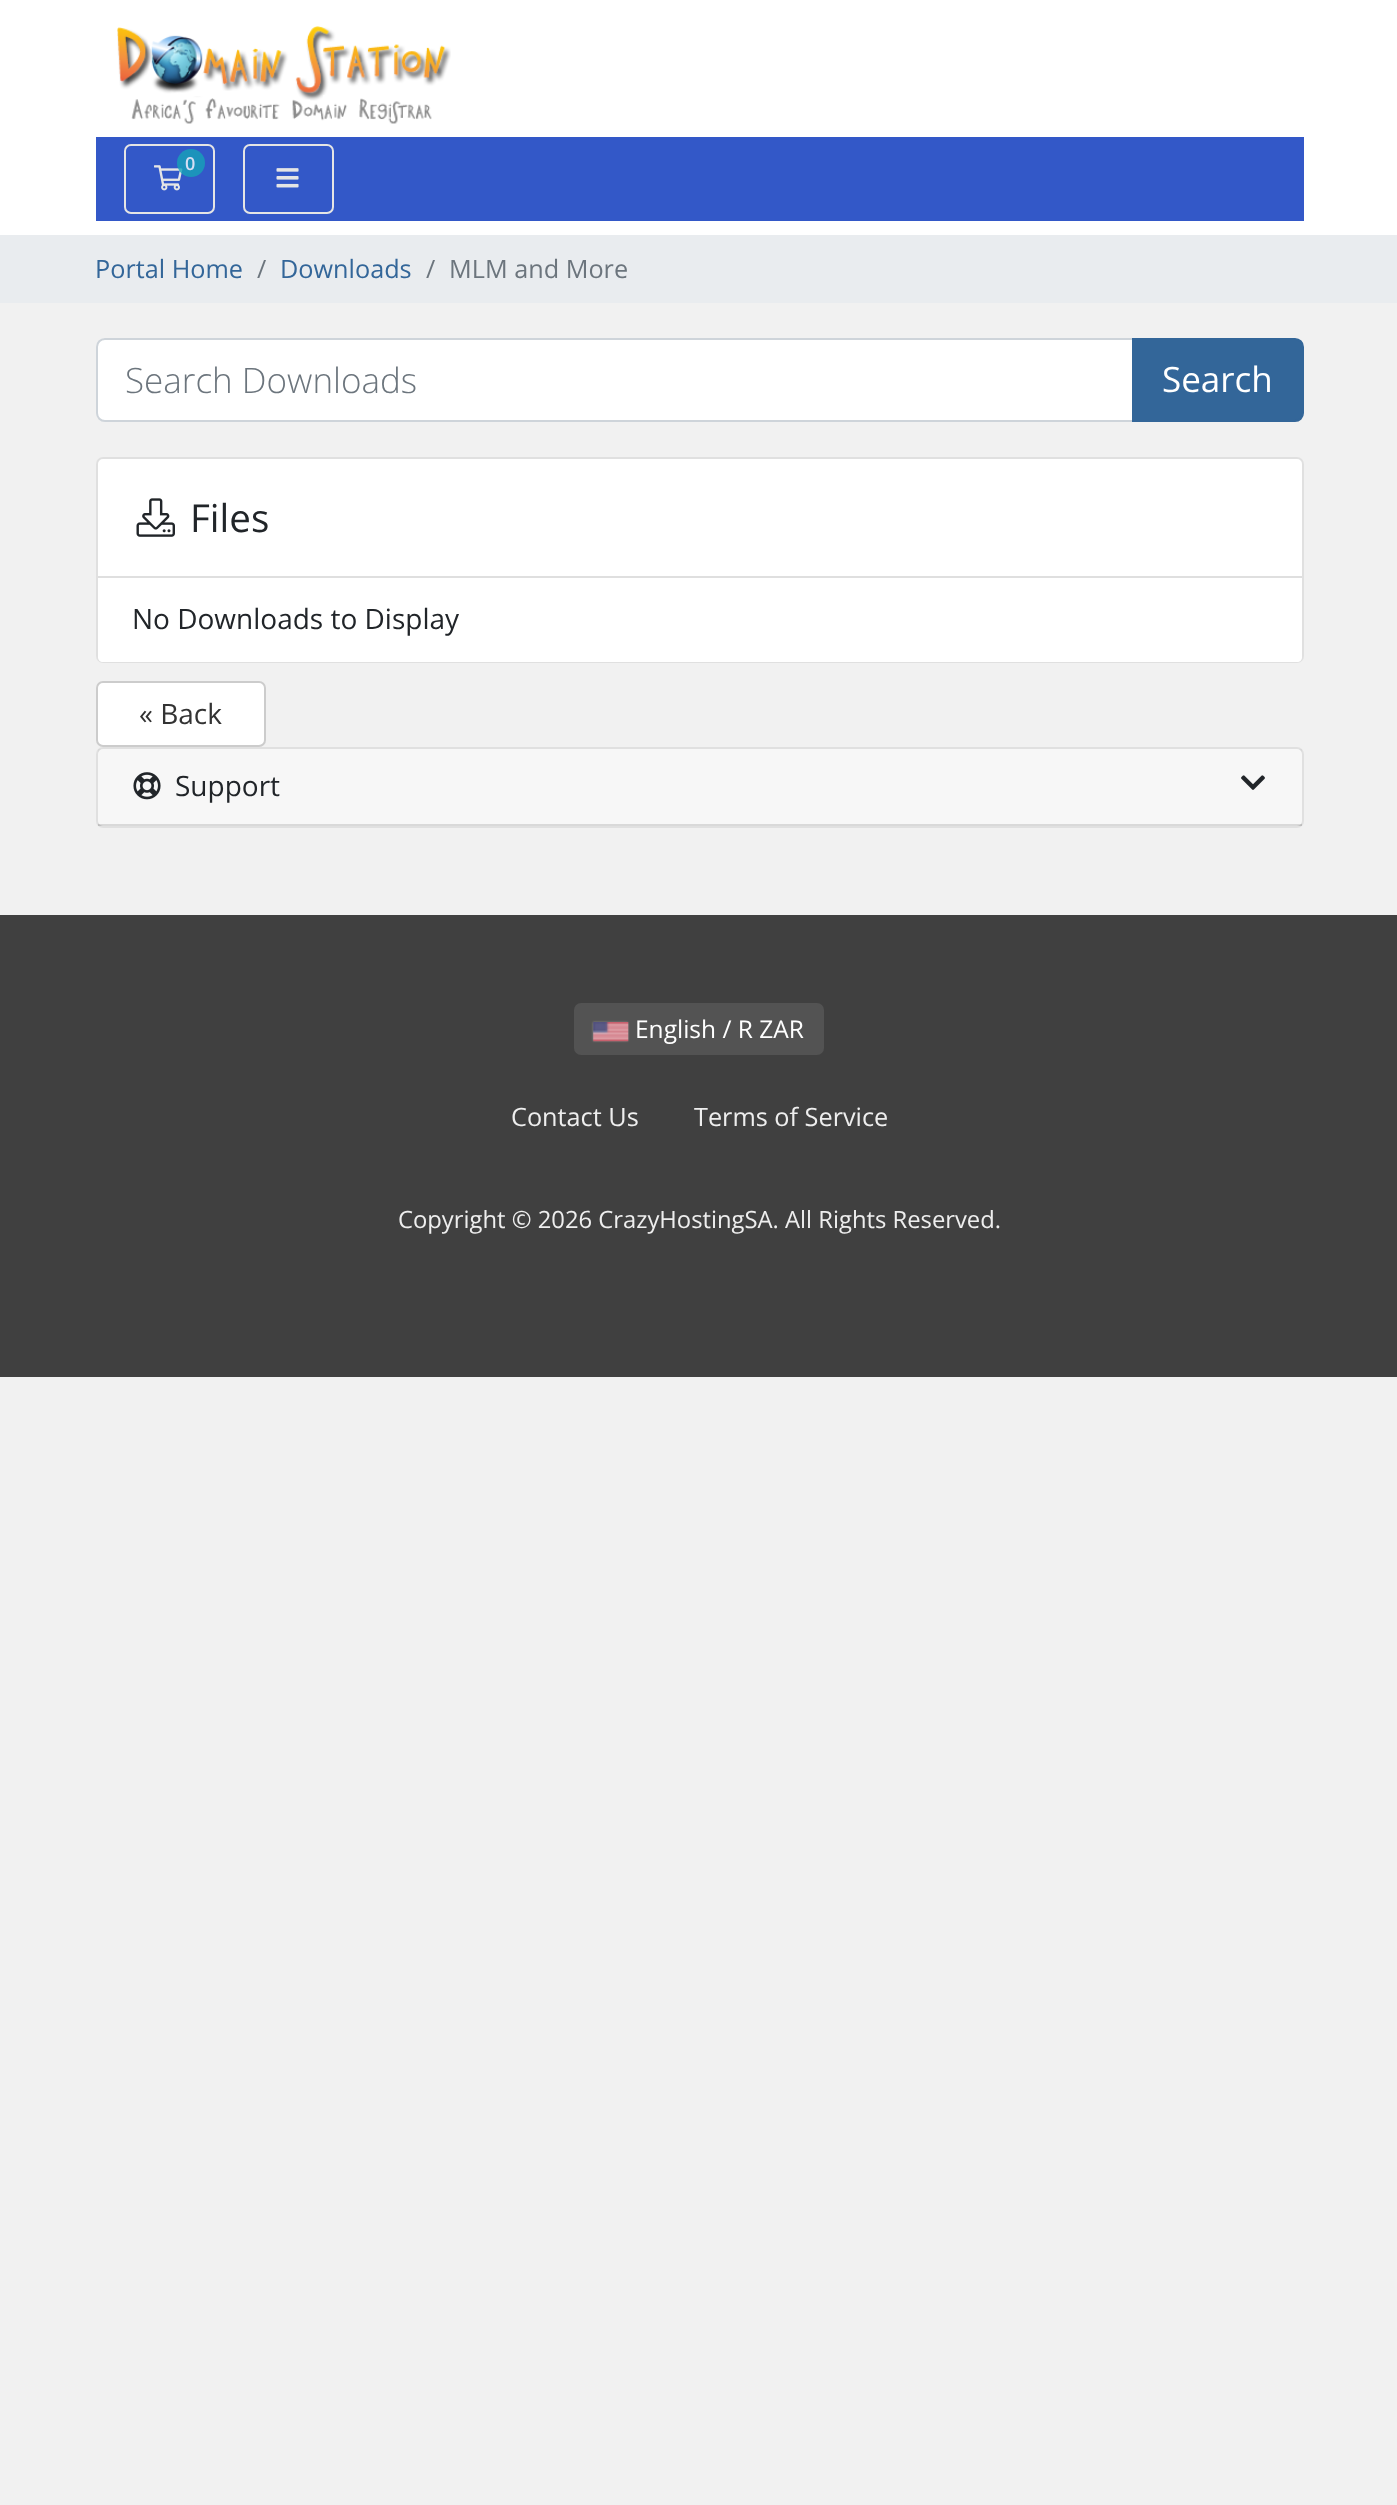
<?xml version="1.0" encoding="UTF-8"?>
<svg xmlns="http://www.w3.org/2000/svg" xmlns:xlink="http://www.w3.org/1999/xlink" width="1397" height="2505">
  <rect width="100%" height="100%" fill="#f1f1f1" />
  <rect width="1397" height="235" fill="#ffffff" />
  <image x="117" y="26" width="334" height="98" xlink:href="image1.png" />
  <rect x="96" y="137" width="1208" height="84" fill="#3358c8" />
  <rect x="125" y="145" width="89" height="68" rx="6" fill="none" stroke="#e5e5e5" stroke-width="2" />
  <image x="154" y="165" width="29" height="26" xlink:href="image2.png" />
  <circle cx="191" cy="163" r="14" fill="#17a2b8" fill-opacity="0.8" />
  <rect x="244" y="145" width="89" height="68" rx="6" fill="none" stroke="#e5e5e5" stroke-width="2" />
  <image x="276" y="168" width="23" height="20" xlink:href="image3.png" />
  <rect y="235" width="1397" height="68" fill="#e9ecef" />
  <path d="M 105 339 h 1028 v 82 h -1028 c -4.5 0 -8 -3.5 -8 -8 v -66 c 0 -4.5 3.5 -8 8 -8 z" fill="#ffffff" stroke="#ced4da" stroke-width="2" />
  <path d="M 1133 339 h 162 c 4.5 0 8 3.5 8 8 v 66 c 0 4.5 -3.5 8 -8 8 h -162 z" fill="#336699" stroke="#336699" stroke-width="2" />
  <rect x="96" y="457" width="1208" height="206" rx="7" fill="#ffffff" />
  <rect x="97" y="458" width="1206" height="204" rx="6" fill="none" stroke="#000000" stroke-opacity="0.12" stroke-width="2" />
  <image x="136" y="498" width="39" height="39" xlink:href="image4.png" />
  <rect x="98" y="576" width="1204" height="2" fill="#dfdfdf" />
  <path d="M 98 578 h 1204 v 79 c 0 3 -2 5 -5 5 h -1194 c -3 0 -5 -2 -5 -5 z" fill="#ffffff" />
  <rect x="97" y="682" width="168" height="64" rx="6" fill="#ffffff" stroke="#cccccc" stroke-width="2" />
  <rect x="96" y="747" width="1208" height="81" rx="7" fill="#ffffff" />
  <rect x="97" y="748" width="1206" height="79" rx="6" fill="none" stroke="#000000" stroke-opacity="0.12" stroke-width="2" />
  <rect x="98" y="749" width="1204" height="77" fill="#000000" fill-opacity="0.03" />
  <rect x="98" y="824" width="1204" height="2" fill="#000000" fill-opacity="0.12" />
  <image x="133" y="772" width="28" height="28" xlink:href="image5.png" />
  <image x="1241" y="775" width="24" height="15" xlink:href="image6.png" />
  <rect y="915" width="1397" height="462" fill="#404040" />
  <rect x="574" y="1003" width="250" height="52" rx="7" fill="#535353" />
  <rect x="593" y="1022" width="35" height="19" fill="#888888" filter="blur(1px)" />
  <image x="593" y="1022" width="36" height="20" xlink:href="image7.png" />
  <text x="185" y="170" style="font-family: Open Sans; font-size: 18px; font-weight: 600; fill: #d6def4">0</text>
  <text x="95" y="278" style="font-family: Open Sans; font-size: 25.25px; fill: #336699">Portal Home</text>
  <text x="257" y="278" style="font-family: Open Sans; font-size: 25.25px; fill: #6c757d">/</text>
  <text x="280" y="278" style="font-family: Open Sans; font-size: 25.25px; fill: #336699">Downloads</text>
  <text x="426" y="278" style="font-family: Open Sans; font-size: 25.25px; fill: #6c757d">/</text>
  <text x="449" y="278" style="font-family: Open Sans; font-size: 25.25px; fill: #6c757d">MLM and More</text>
  <text x="125" y="393" style="font-family: Open Sans; font-size: 35px; font-weight: 300; fill: #6c757d">Search Downloads</text>
  <text x="1162" y="392" style="font-family: Open Sans; font-size: 35px; fill: #ffffff">Search</text>
  <text x="190" y="532" style="font-family: Open Sans; font-size: 38.5px; fill: #212529">Files</text>
  <text x="132" y="629" style="font-family: Open Sans; font-size: 28px; fill: #212529">No Downloads to Display</text>
  <text x="139" y="724" style="font-family: Open Sans; font-size: 28px; fill: #333333">« Back</text>
  <text x="175" y="796" style="font-family: Open Sans; font-size: 28px; fill: #212529">Support</text>
  <text x="635" y="1038" style="font-family: Open Sans; font-size: 24.5px; fill: #ffffff">English / R ZAR</text>
  <text x="511" y="1126" style="font-family: Open Sans; font-size: 25.25px; fill: #eeeeee">Contact Us</text>
  <text x="694" y="1126" style="font-family: Open Sans; font-size: 25.25px; fill: #eeeeee">Terms of Service</text>
  <text x="398" y="1228" style="font-family: Open Sans; font-size: 23.8px; fill: #eeeeee">Copyright © 2026 CrazyHostingSA. All Rights Reserved.</text>
</svg>
